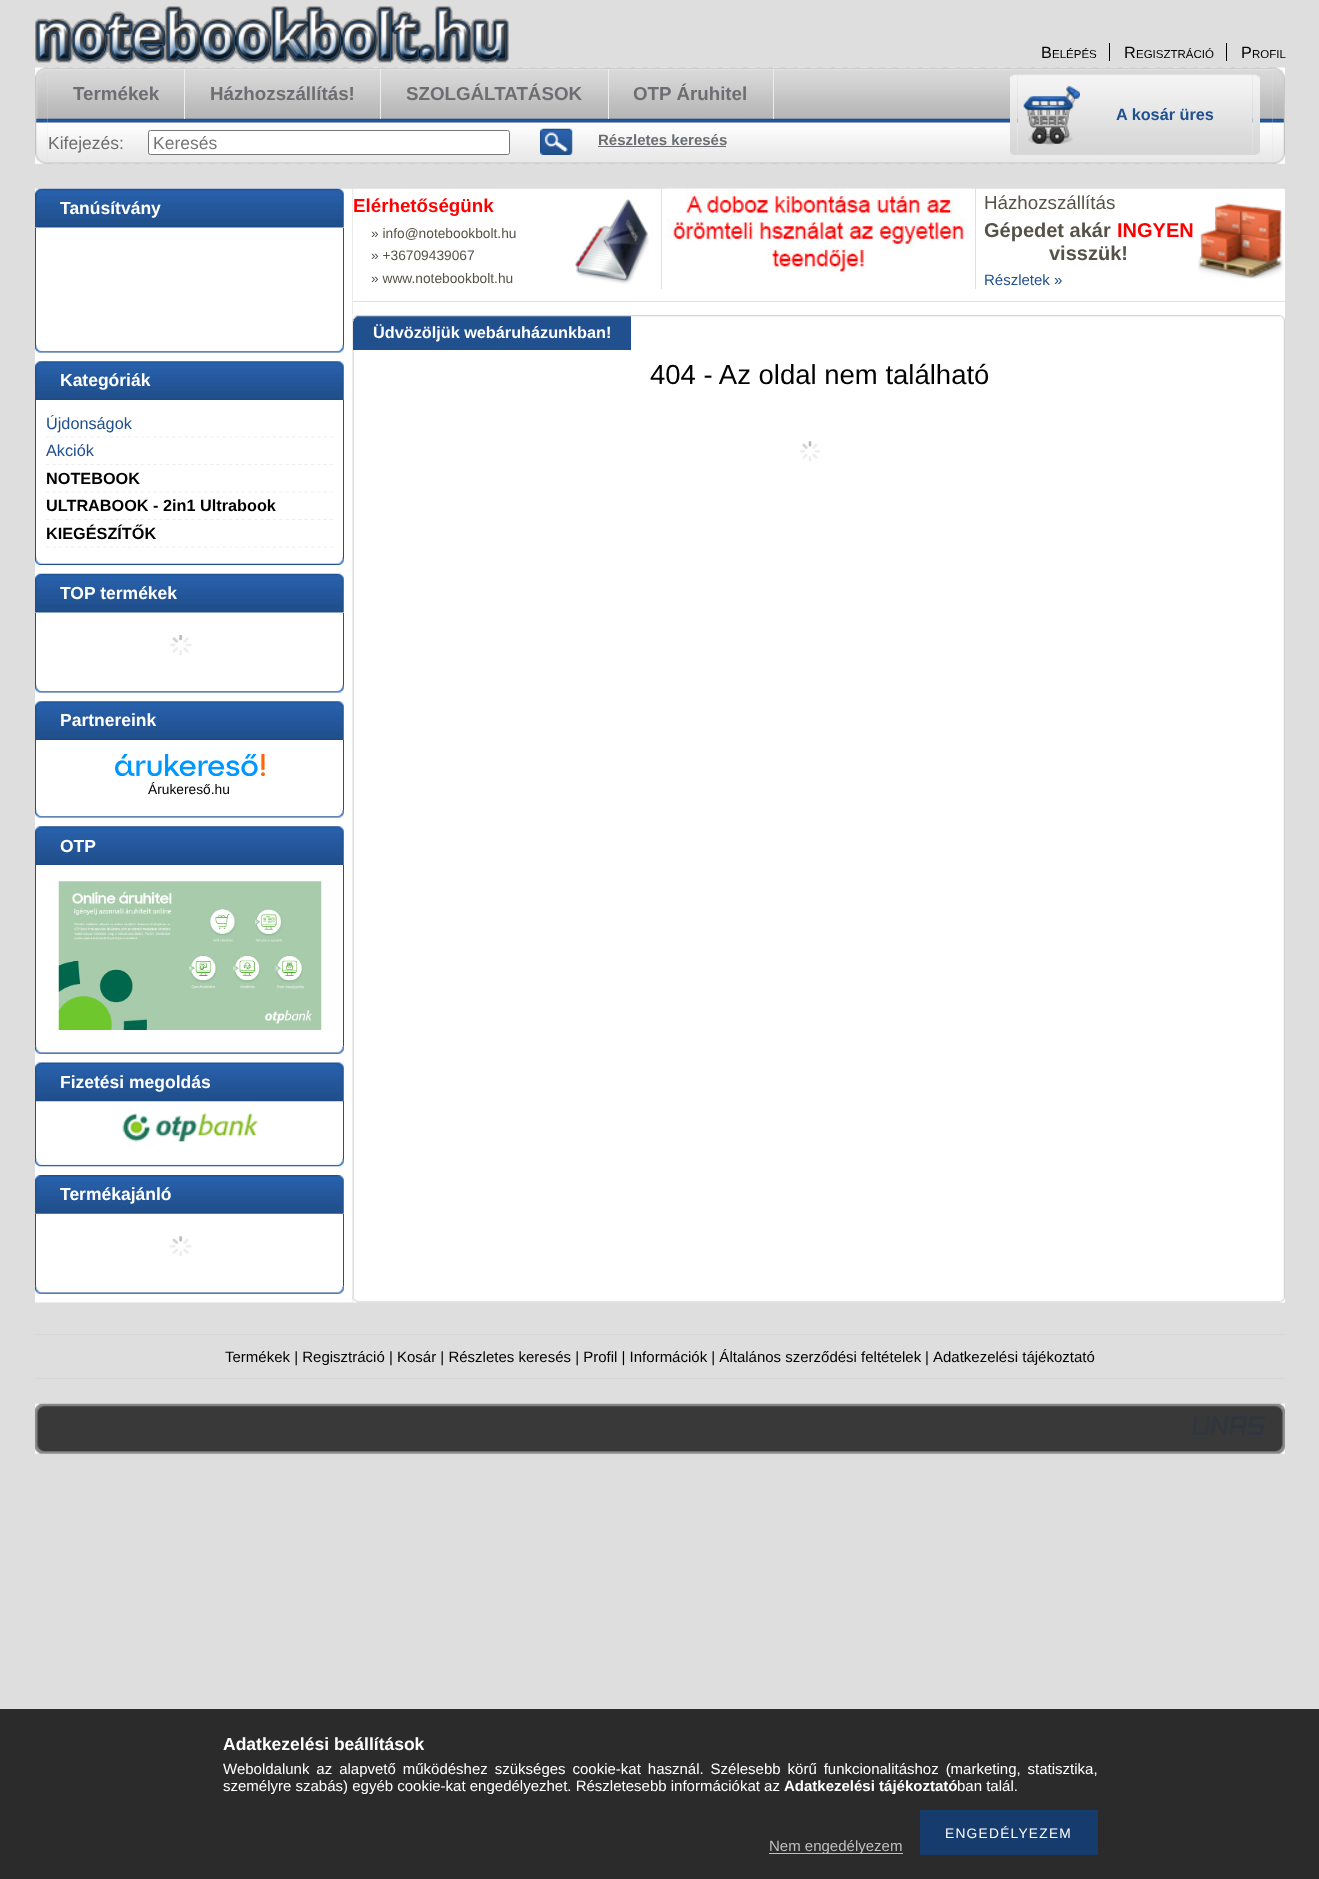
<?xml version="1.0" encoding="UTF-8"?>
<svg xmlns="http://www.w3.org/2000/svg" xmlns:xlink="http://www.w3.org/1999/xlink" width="1319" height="1879">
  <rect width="100%" height="100%" fill="#dedede" />
  <image x="35" y="6" width="474" height="58" xlink:href="image1.png" />
  <rect x="1109" y="43" width="1" height="18" fill="#000000" />
  <rect x="1226" y="43" width="1" height="18" fill="#000000" />
  <image x="35" y="67" width="13" height="97" xlink:href="image2.png" />
  <image x="47" y="67" width="1226" height="97" xlink:href="image3.png" />
  <rect x="184" y="69" width="1" height="50" fill="#ececec" />
  <rect x="380" y="69" width="1" height="50" fill="#ececec" />
  <rect x="608" y="69" width="1" height="50" fill="#ececec" />
  <rect x="773" y="69" width="1" height="50" fill="#ececec" />
  <rect x="148.5" y="130.5" width="361" height="24" rx="2" fill="#ffffff" stroke="#767676" />
  <image x="540" y="128" width="33" height="27" xlink:href="image4.png" />
  <rect x="598" y="146" width="128" height="1" fill="#6c6e71" />
  <image x="1010" y="74" width="8" height="81" xlink:href="image5.png" />
  <image x="1017" y="74" width="236" height="81" xlink:href="image6.png" />
  <image x="1023" y="86" width="57" height="59" xlink:href="image7.png" />
  <image x="1252" y="74" width="8" height="81" xlink:href="image8.png" />
  <image x="1272" y="67" width="13" height="97" xlink:href="image9.png" />
  <image x="35" y="188" width="1250" height="1115" xlink:href="image10.png" />
  <image x="352" y="1296" width="933" height="7" xlink:href="image11.png" />
  <image x="35" y="188" width="309" height="40" xlink:href="image12.png" />
  <rect x="343" y="228" width="1" height="117" fill="#204f8c" />
  <rect x="35" y="228" width="1" height="117" fill="#204f8c" />
  <image x="35" y="345" width="309" height="8" xlink:href="image13.png" />
  <image x="35" y="361" width="309" height="39" xlink:href="image14.png" />
  <image x="35" y="557" width="309" height="8" xlink:href="image15.png" />
  <rect x="343" y="400" width="1" height="158" fill="#204f8c" />
  <rect x="35" y="400" width="1" height="158" fill="#204f8c" />
  <path d="M 46 437 h 288" fill="none" stroke="#efefef" stroke-width="1.2" stroke-dasharray="3.75 2.55" />
  <path d="M 46 464.5 h 288" fill="none" stroke="#efefef" stroke-width="1.2" stroke-dasharray="3.75 2.55" />
  <path d="M 46 492 h 288" fill="none" stroke="#efefef" stroke-width="1.2" stroke-dasharray="3.75 2.55" />
  <path d="M 46 519.5 h 288" fill="none" stroke="#efefef" stroke-width="1.2" stroke-dasharray="3.75 2.55" />
  <path d="M 46 547 h 288" fill="none" stroke="#efefef" stroke-width="1.2" stroke-dasharray="3.75 2.55" />
  <image x="35" y="573" width="309" height="40" xlink:href="image16.png" />
  <rect x="343" y="613" width="1" height="72" fill="#204f8c" />
  <rect x="35" y="613" width="1" height="72" fill="#204f8c" />
  <image x="170" y="635" width="22" height="20" xlink:href="image17.png" />
  <image x="35" y="685" width="309" height="8" xlink:href="image13.png" />
  <image x="35" y="701" width="309" height="39" xlink:href="image14.png" />
  <rect x="343" y="740" width="1" height="70" fill="#204f8c" />
  <rect x="35" y="740" width="1" height="70" fill="#204f8c" />
  <image x="115" y="754" width="150" height="22" xlink:href="image18.png" />
  <image x="35" y="810" width="309" height="8" xlink:href="image13.png" />
  <image x="35" y="826" width="309" height="39" xlink:href="image14.png" />
  <rect x="343" y="865" width="1" height="181" fill="#204f8c" />
  <rect x="35" y="865" width="1" height="181" fill="#204f8c" />
  <image x="58" y="881" width="264" height="149" xlink:href="image19.png" />
  <image x="35" y="1046" width="309" height="8" xlink:href="image20.png" />
  <image x="35" y="1062" width="309" height="40" xlink:href="image21.png" />
  <image x="35" y="1158" width="309" height="9" xlink:href="image23.png" />
  <rect x="343" y="1101" width="1" height="58" fill="#204f8c" />
  <rect x="35" y="1101" width="1" height="58" fill="#204f8c" />
  <image x="122" y="1113" width="136" height="29" xlink:href="image22.png" />
  <image x="35" y="1175" width="309" height="39" xlink:href="image24.png" />
  <rect x="343" y="1214" width="1" height="72" fill="#204f8c" />
  <rect x="35" y="1214" width="1" height="72" fill="#204f8c" />
  <image x="170" y="1236" width="22" height="21" xlink:href="image25.png" />
  <image x="35" y="1286" width="309" height="8" xlink:href="image20.png" />
  <rect x="353" y="189" width="932" height="126" fill="#ffffff" />
  <rect x="353" y="301" width="932" height="1" fill="#e0e0e0" />
  <image x="575" y="198" width="74" height="86" xlink:href="image26.png" />
  <rect x="661" y="189" width="1" height="100" fill="#e0e0e0" />
  <image x="666" y="188" width="305" height="88" xlink:href="image27.png" />
  <rect x="975" y="189" width="1" height="100" fill="#e0e0e0" />
  <image x="1198" y="203" width="86" height="76" xlink:href="image28.png" />
  <rect x="353" y="316" width="278" height="34" fill="#21508f" />
  <image x="352" y="315" width="933" height="7" xlink:href="image29.png" />
  <image x="800" y="441" width="20" height="21" xlink:href="image30.png" />
  <rect x="35" y="1334" width="1250" height="1" fill="#d6d6d6" />
  <rect x="35" y="1378" width="1250" height="1" fill="#d6d6d6" />
  <image x="35" y="1403" width="1250" height="51" xlink:href="image31.png" />
  <image x="1192" y="1416" width="73" height="19" xlink:href="image32.png" />
  <rect y="1709" width="1319" height="170" fill="#2b2b2b" />
  <rect x="920" y="1810" width="178" height="45" fill="#163c6d" />
  <rect x="769" y="1853" width="134" height="1" fill="#bfbfbf" />
  <text x="1041" y="58" style="font-family: Liberation Sans; font-size: 16.25px; fill: #000000">B</text>
  <text x="1052" y="58" style="font-family: Liberation Sans; font-size: 11.5px; fill: #000000">ELÉPÉS</text>
  <text x="1124" y="58" style="font-family: Liberation Sans; font-size: 16.25px; fill: #000000">R</text>
  <text x="1136" y="58" style="font-family: Liberation Sans; font-size: 11.5px; fill: #000000">EGISZTRÁCIÓ</text>
  <text x="1241" y="58" style="font-family: Liberation Sans; font-size: 16.25px; fill: #000000">P</text>
  <text x="1252" y="58" style="font-family: Liberation Sans; font-size: 11.5px; fill: #000000">ROFIL</text>
  <text x="73" y="100" style="font-family: Liberation Sans; font-size: 18.75px; font-weight: bold; fill: #6c6e71">Termékek</text>
  <text x="210" y="100" style="font-family: Liberation Sans; font-size: 18.75px; font-weight: bold; fill: #6c6e71">Házhozszállítás!</text>
  <text x="406" y="100" style="font-family: Liberation Sans; font-size: 18.75px; font-weight: bold; fill: #6c6e71">SZOLGÁLTATÁSOK</text>
  <text x="633" y="100" style="font-family: Liberation Sans; font-size: 18.75px; font-weight: bold; fill: #6c6e71">OTP Áruhitel</text>
  <text x="48" y="149" style="font-family: Liberation Sans; font-size: 17.5px; fill: #6c6e71">Kifejezés:</text>
  <text x="153" y="149" style="font-family: Liberation Sans; font-size: 17.5px; fill: #757575">Keresés</text>
  <text x="598" y="145" style="font-family: Liberation Sans; font-size: 15px; font-weight: bold; fill: #6c6e71">Részletes keresés</text>
  <text x="1116" y="120" style="font-family: Liberation Sans; font-size: 16.25px; font-weight: bold; fill: #21508f">A kosár üres</text>
  <text x="60" y="214" style="font-family: Liberation Sans; font-size: 17.5px; font-weight: bold; fill: #ffffff">Tanúsítvány</text>
  <text x="60" y="386" style="font-family: Liberation Sans; font-size: 17.5px; font-weight: bold; fill: #ffffff">Kategóriák</text>
  <text x="46" y="429" style="font-family: Liberation Sans; font-size: 16.25px; fill: #21508f">Újdonságok</text>
  <text x="46" y="456" style="font-family: Liberation Sans; font-size: 16.25px; fill: #21508f">Akciók</text>
  <text x="46" y="484" style="font-family: Liberation Sans; font-size: 16.25px; font-weight: bold; fill: #000000">NOTEBOOK</text>
  <text x="46" y="511" style="font-family: Liberation Sans; font-size: 16.25px; font-weight: bold; fill: #000000">ULTRABOOK - 2in1 Ultrabook</text>
  <text x="46" y="539" style="font-family: Liberation Sans; font-size: 16.25px; font-weight: bold; fill: #000000">KIEGÉSZÍTŐK</text>
  <text x="60" y="599" style="font-family: Liberation Sans; font-size: 17.5px; font-weight: bold; fill: #ffffff">TOP termékek</text>
  <text x="60" y="726" style="font-family: Liberation Sans; font-size: 17.5px; font-weight: bold; fill: #ffffff">Partnereink</text>
  <text x="148" y="794" style="font-family: Liberation Sans; font-size: 13.75px; fill: #000000">Árukereső.hu</text>
  <text x="60" y="852" style="font-family: Liberation Sans; font-size: 17.5px; font-weight: bold; fill: #ffffff">OTP</text>
  <text x="60" y="1088" style="font-family: Liberation Sans; font-size: 17.5px; font-weight: bold; fill: #ffffff">Fizetési megoldás</text>
  <text x="60" y="1200" style="font-family: Liberation Sans; font-size: 17.5px; font-weight: bold; fill: #ffffff">Termékajánló</text>
  <text x="353" y="212" style="font-family: Liberation Sans; font-size: 18.75px; font-weight: bold; fill: #ff0000">Elérhetőségünk</text>
  <text x="371" y="238" style="font-family: Liberation Sans; font-size: 13.75px; fill: #565247">» info@notebookbolt.hu</text>
  <text x="371" y="260" style="font-family: Liberation Sans; font-size: 13.75px; fill: #565247">» +36709439067</text>
  <text x="371" y="283" style="font-family: Liberation Sans; font-size: 13.75px; fill: #565247">» www.notebookbolt.hu</text>
  <text x="984" y="209" style="font-family: Liberation Sans; font-size: 18.75px; fill: #565247">Házhozszállítás</text>
  <text x="984" y="237" style="font-family: Liberation Sans; font-size: 20px; font-weight: bold; fill: #565247">Gépedet akár</text>
  <text x="1117" y="237" style="font-family: Liberation Sans; font-size: 20px; font-weight: bold; fill: #ff0000">INGYEN</text>
  <text x="1049" y="260" style="font-family: Liberation Sans; font-size: 20px; font-weight: bold; fill: #565247">visszük!</text>
  <text x="984" y="285" style="font-family: Liberation Sans; font-size: 15px; fill: #21508f">Részletek »</text>
  <text x="373" y="338" style="font-family: Liberation Sans; font-size: 16.25px; font-weight: bold; fill: #ffffff">Üdvözöljük webáruházunkban!</text>
  <text x="650" y="384" style="font-family: Liberation Sans; font-size: 27.5px; fill: #000000">404 - Az oldal nem található</text>
  <text x="225" y="1362" style="font-family: Liberation Sans; font-size: 15px; fill: #000000">Termékek | Regisztráció | Kosár | Részletes keresés | Profil | Információk | Általános szerződési feltételek</text>
  <text x="925" y="1362" style="font-family: Liberation Sans; font-size: 15px; fill: #000000">|</text>
  <text x="933" y="1362" style="font-family: Liberation Sans; font-size: 15px; fill: #000000">Adatkezelési tájékoztató</text>
  <text x="223" y="1750" style="font-family: Liberation Sans; font-size: 17.5px; font-weight: bold; fill: #ffffff">Adatkezelési beállítások</text>
  <text x="223" y="1774" word-spacing="2.75" style="font-family: Liberation Sans; font-size: 15px; fill: #ffffff">Weboldalunk az alapvető működéshez szükséges cookie-kat használ. Szélesebb körű funkcionalitáshoz (marketing, statisztika,</text>
  <text x="223" y="1791" style="font-family: Liberation Sans; font-size: 15px; fill: #ffffff">személyre szabás) egyéb cookie-kat engedélyezhet. Részletesebb információkat az</text>
  <text x="784" y="1791" style="font-family: Liberation Sans; font-size: 15px; font-weight: bold; fill: #ffffff">Adatkezelési tájékoztató</text>
  <text x="957" y="1791" style="font-family: Liberation Sans; font-size: 15px; fill: #ffffff">ban talál.</text>
  <text x="945" y="1838" style="font-family: Liberation Sans; font-size: 13.75px; letter-spacing: 1.25px; fill: #ffffff">ENGEDÉLYEZEM</text>
  <text x="769" y="1851" style="font-family: Liberation Sans; font-size: 15px; fill: #bfbfbf">Nem engedélyezem</text>
</svg>
